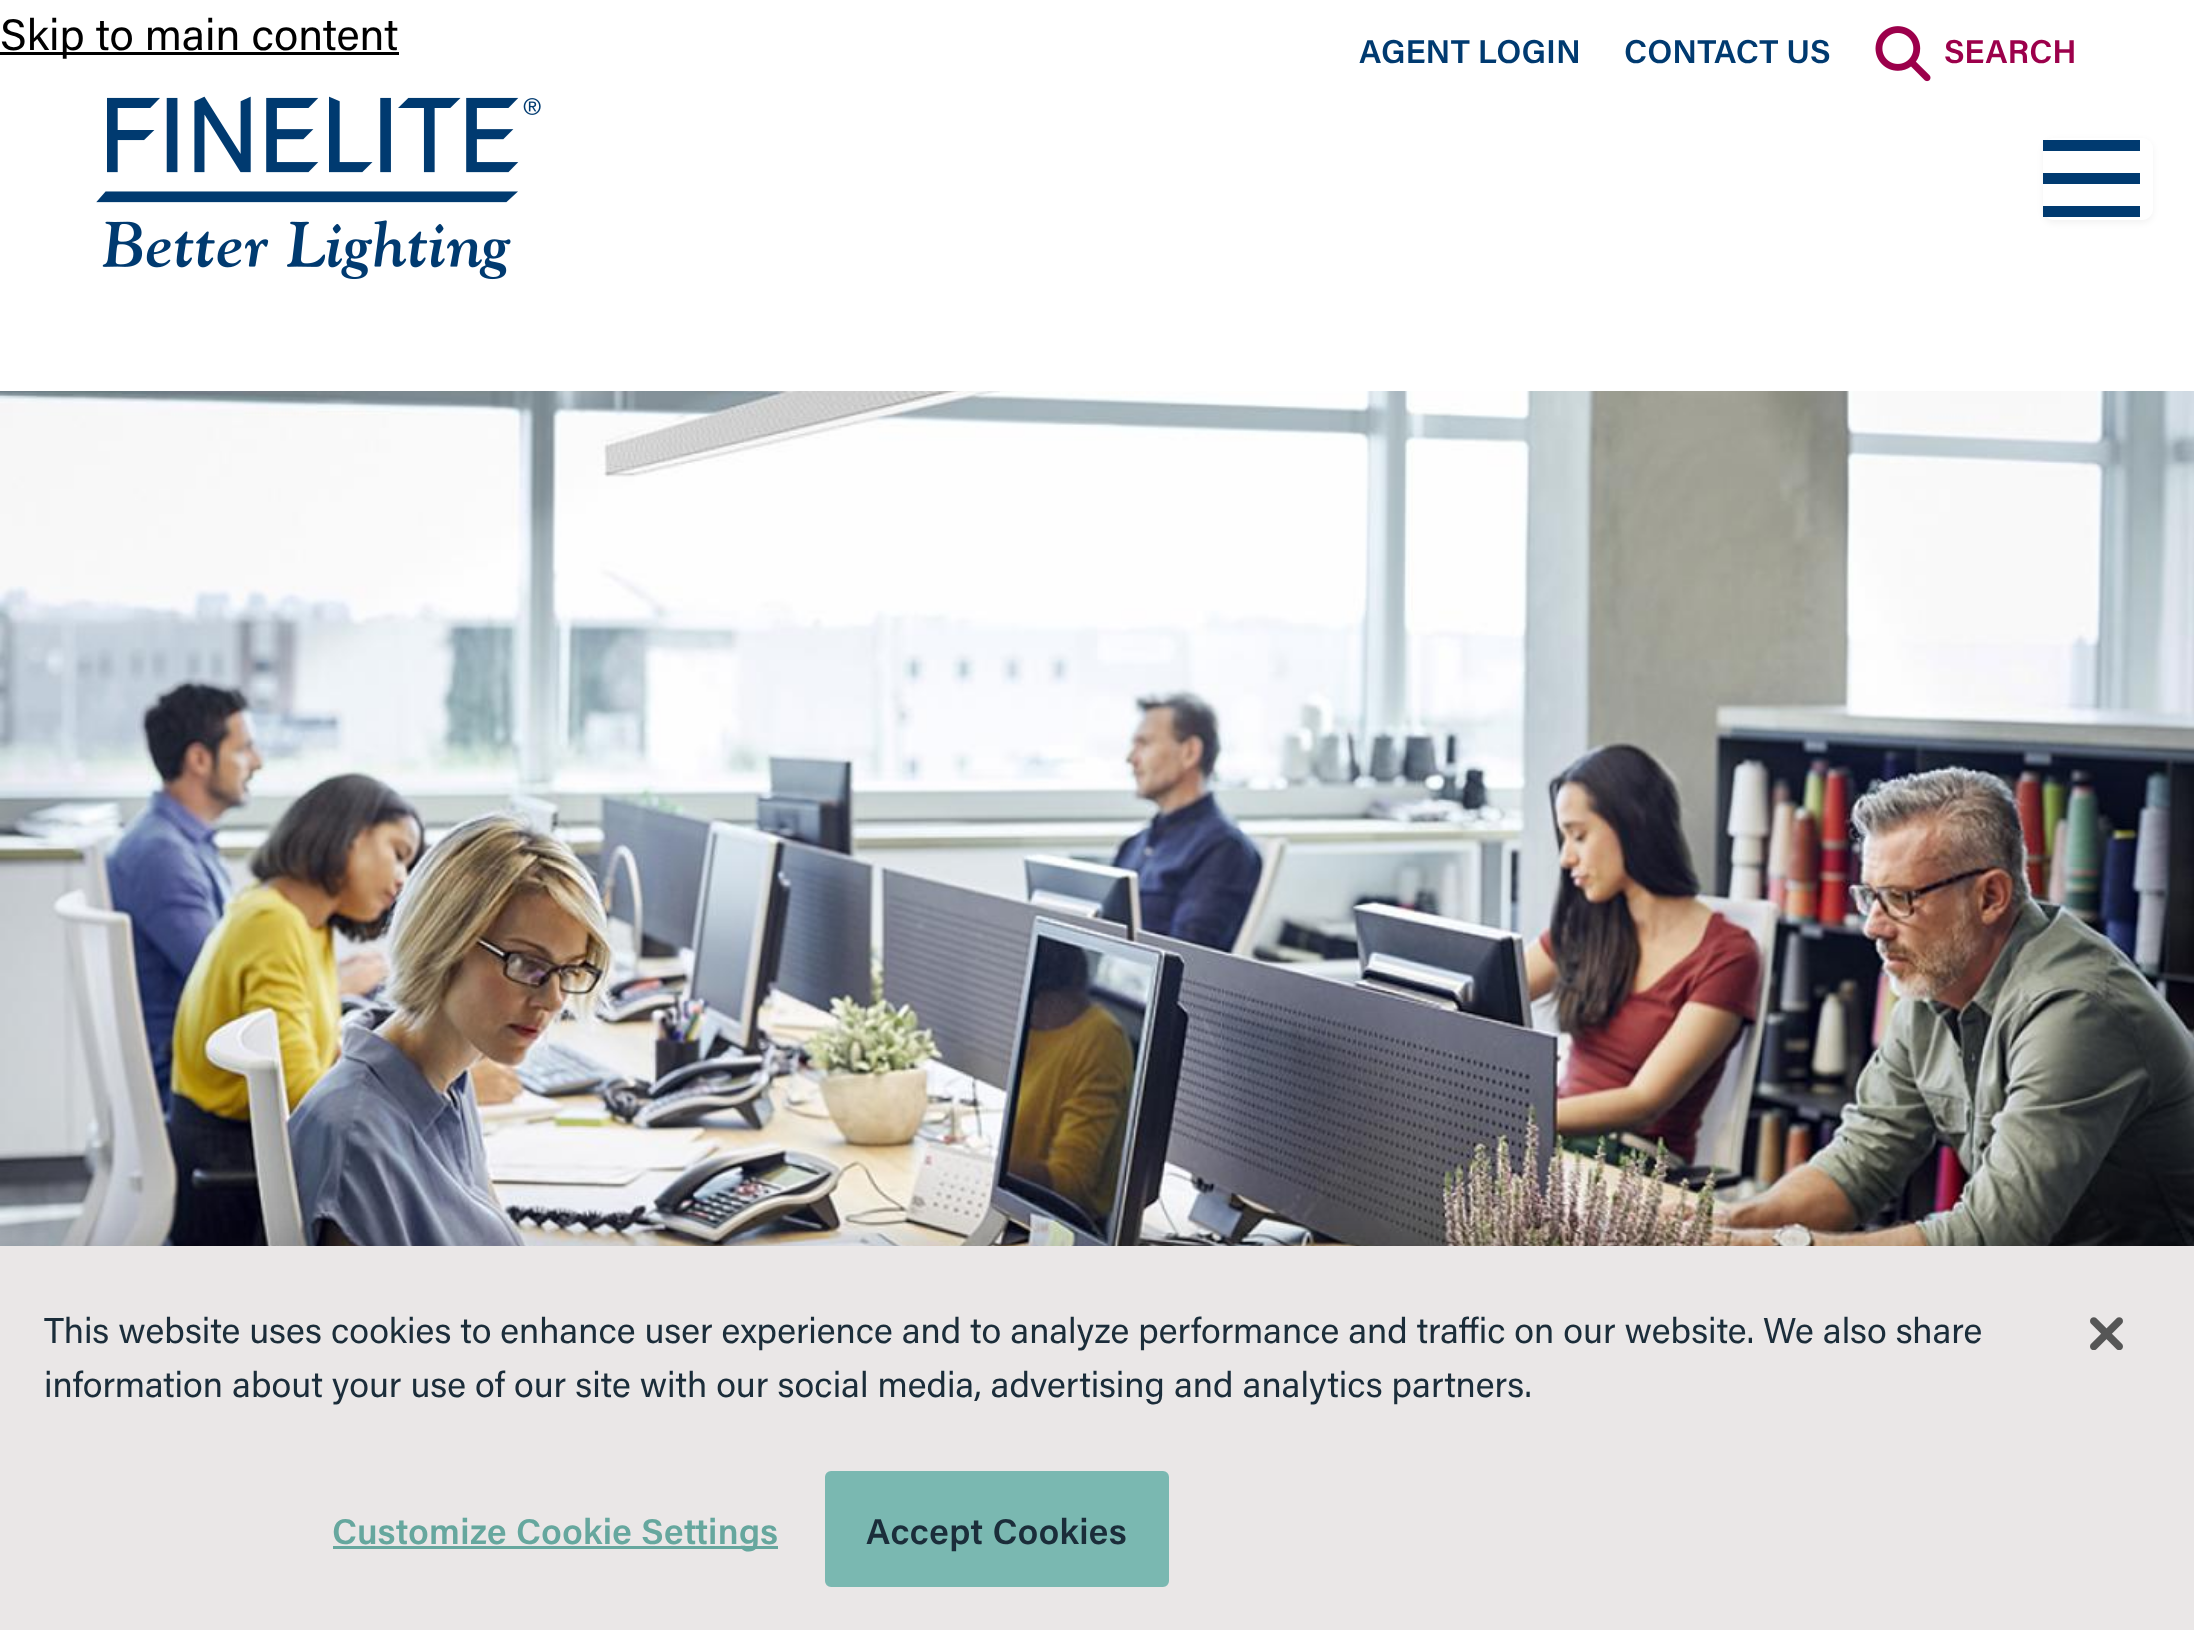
<?xml version="1.0" encoding="UTF-8"?>
<svg xmlns="http://www.w3.org/2000/svg" xmlns:xlink="http://www.w3.org/1999/xlink" width="2194" height="1630">
  <defs>
    <clipPath id="clip1"><path d="M 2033 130 h 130 v 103 h -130 z m 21 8 h 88 c 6 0 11 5 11 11 v 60 c 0 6 -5 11 -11 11 h -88 c -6 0 -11 -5 -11 -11 v -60 c 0 -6 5 -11 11 -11 z" clip-rule="evenodd" /></clipPath>
  </defs>
  <rect width="100%" height="100%" fill="#ffffff" />
  <rect y="52" width="399" height="3" fill="#000000" />
  <image x="1875" y="26" width="56" height="56" xlink:href="image1.png" />
  <image x="96" y="96" width="445" height="184" xlink:href="image2.png" />
  <g clip-path="url(#clip1)">
    <rect x="2043" y="140" width="110" height="83" rx="11" fill="#000000" fill-opacity="0.05" filter="blur(3px)" />
  </g>
  <rect x="2043" y="140" width="97" height="11" fill="#003a70" />
  <rect x="2043" y="173" width="97" height="11" fill="#003a70" />
  <rect x="2043" y="206" width="97" height="11" fill="#003a70" />
  <image x="0" y="391" width="2194" height="855" xlink:href="image3.png" />
  <rect y="1246" width="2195" height="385" fill="#000000" fill-opacity="0.2" filter="blur(25px)" />
  <rect y="1246" width="2194" height="384" fill="#eae7e7" />
  <rect x="333" y="1546" width="445" height="3" fill="#66a79e" />
  <rect x="826.5" y="1472.5" width="341" height="113" rx="4.5" fill="#7ab8b1" stroke="#7ab8b1" stroke-width="3" />
  <image x="2090" y="1317" width="33" height="33" xlink:href="image4.png" />
  <text x="0" y="50" style="font-family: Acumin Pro; font-size: 44px; fill: #000000">Skip to main content</text>
  <text x="1359" y="63" style="font-family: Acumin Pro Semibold; font-size: 33px; font-weight: 600; fill: #003a70">AGENT LOGIN</text>
  <text x="1624" y="63" style="font-family: Acumin Pro Semibold; font-size: 33px; font-weight: 600; fill: #003a70">CONTACT US</text>
  <text x="1944" y="63" style="font-family: Acumin Pro Semibold; font-size: 33px; font-weight: 600; fill: #9c004b">SEARCH</text>
  <text x="44" y="1343" style="font-family: Acumin Pro; font-size: 35.77px; fill: #1b2d3a">This website uses cookies to enhance user experience and to analyze performance and traffic on our website. We also share</text>
  <text x="44" y="1397" style="font-family: Acumin Pro; font-size: 35.77px; fill: #1b2d3a">information about your use of our site with our social media, advertising and analytics partners.</text>
  <text x="332" y="1544" style="font-family: Acumin Pro Semibold; font-size: 35.77px; font-weight: 600; letter-spacing: 0.35px; fill: #66a79e">Customize Cookie Settings</text>
  <text x="866" y="1544" style="font-family: Acumin Pro Semibold; font-size: 35.77px; font-weight: 600; letter-spacing: 0.35px; fill: #1b2d3a">Accept Cookies</text>
</svg>
